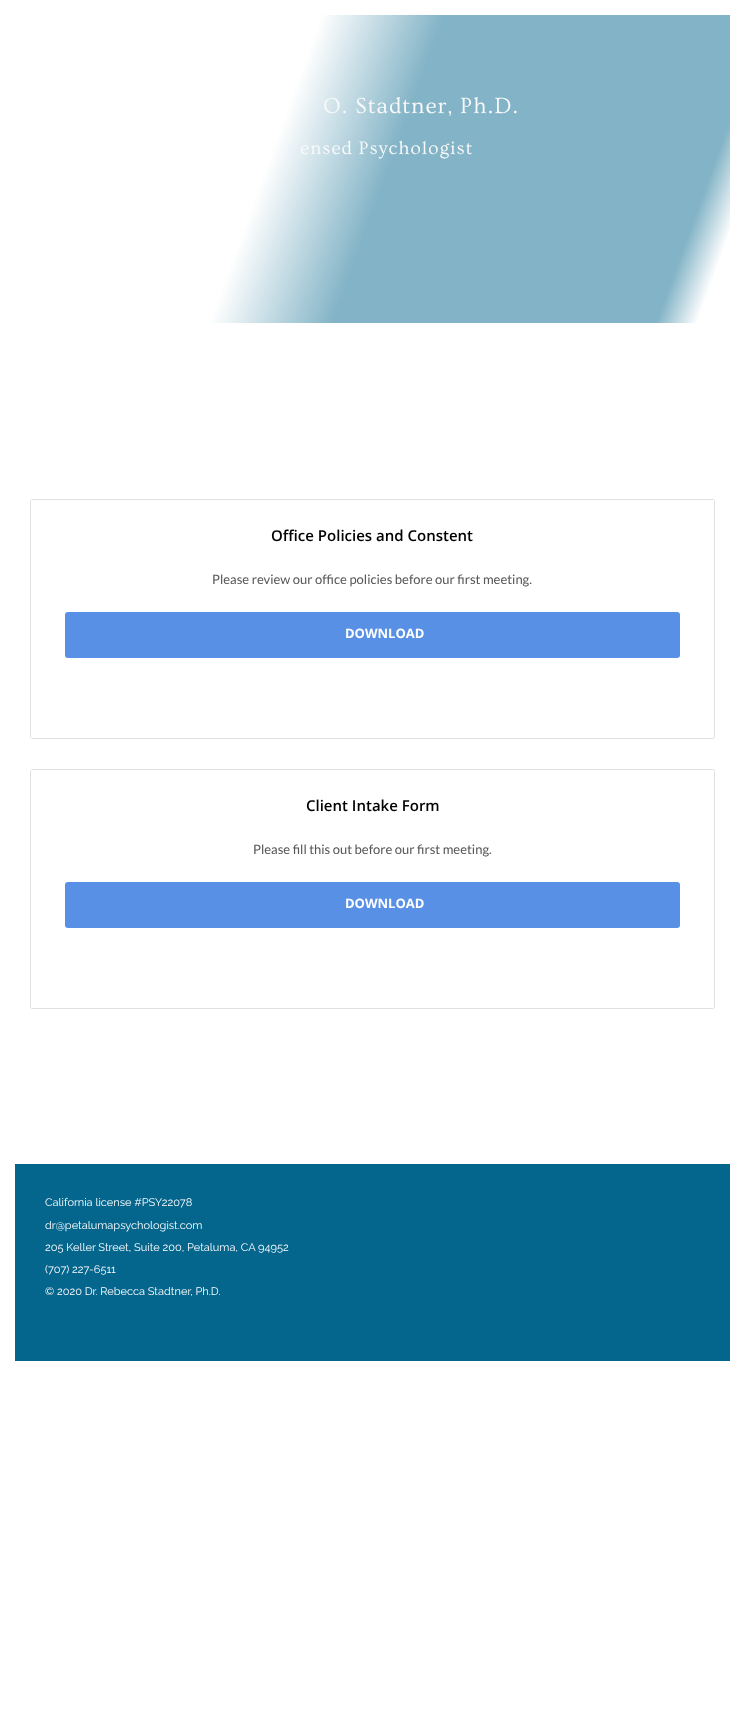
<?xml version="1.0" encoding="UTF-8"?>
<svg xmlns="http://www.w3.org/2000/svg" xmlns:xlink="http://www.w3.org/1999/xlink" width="745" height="1729">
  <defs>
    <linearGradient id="g1" gradientUnits="userSpaceOnUse" x1="7.3" y1="36" x2="738" y2="302"><stop offset="0" stop-color="#ffffff" /><stop offset="0.37" stop-color="#ffffff" /><stop offset="0.52" stop-color="#82b3c6" /><stop offset="0.91" stop-color="#82b3c6" /><stop offset="0.96" stop-color="#ffffff" /></linearGradient>
  </defs>
  <rect width="100%" height="100%" fill="#ffffff" />
  <rect x="212" y="15" width="518" height="308" fill="url(#g1)" />
  <path d="M 33 499 c -2 0 -3 1 -3 3 v 234 c 0 2 1 3 3 3 h 679 c 2 0 3 -1 3 -3 v -234 c 0 -2 -1 -3 -3 -3 z m -2 1 v 238 h 683 v -238 z" fill="#e0e0e0" fill-rule="evenodd" />
  <rect x="65" y="612" width="615" height="46" rx="3" fill="#5890e5" />
  <path d="M 33 769 c -2 0 -3 1 -3 3 v 234 c 0 2 1 3 3 3 h 679 c 2 0 3 -1 3 -3 v -234 c 0 -2 -1 -3 -3 -3 z m -2 1 v 238 h 683 v -238 z" fill="#e0e0e0" fill-rule="evenodd" />
  <rect x="65" y="882" width="615" height="46" rx="3" fill="#5890e5" />
  <rect x="15" y="1164" width="715" height="197" fill="#05668d" />
  <text x="323" y="113" style="font-family: Ovo; font-size: 23px; letter-spacing: 1px; fill: #f9f9f9">O. Stadtner, Ph.D.</text>
  <text x="300" y="154" style="font-family: Ovo; font-size: 19px; letter-spacing: 1px; fill: #f9f9f9">ensed Psychologist</text>
  <text x="271" y="541" style="font-family: Open Sans; font-size: 15px; font-weight: 600; fill: #000000">Office Policies and Constent</text>
  <text x="212" y="584" style="font-family: Lato; font-size: 13px; fill: #555555">Please review our office policies before our first meeting.</text>
  <text x="345" y="638" style="font-family: Open Sans; font-size: 13px; font-weight: bold; fill: #ffffff">DOWNLOAD</text>
  <text x="306" y="811" style="font-family: Open Sans; font-size: 15px; font-weight: 600; fill: #000000">Client Intake Form</text>
  <text x="253" y="854" style="font-family: Lato; font-size: 13px; fill: #555555">Please fill this out before our first meeting.</text>
  <text x="345" y="908" style="font-family: Open Sans; font-size: 13px; font-weight: bold; fill: #ffffff">DOWNLOAD</text>
  <text x="45" y="1206" style="font-family: Raleway; font-size: 11px; fill: #ffffff">California license #PSY22078</text>
  <text x="45" y="1229" style="font-family: Raleway; font-size: 11px; fill: #ffffff">dr@petalumapsychologist.com</text>
  <text x="45" y="1251" style="font-family: Raleway; font-size: 11px; fill: #ffffff">205 Keller Street, Suite 200, Petaluma, CA 94952</text>
  <text x="45" y="1273" style="font-family: Raleway; font-size: 11px; fill: #ffffff">(707) 227-6511</text>
  <text x="45" y="1295" style="font-family: Raleway; font-size: 11px; fill: #ffffff">© 2020 Dr. Rebecca Stadtner, Ph.D.</text>
</svg>
